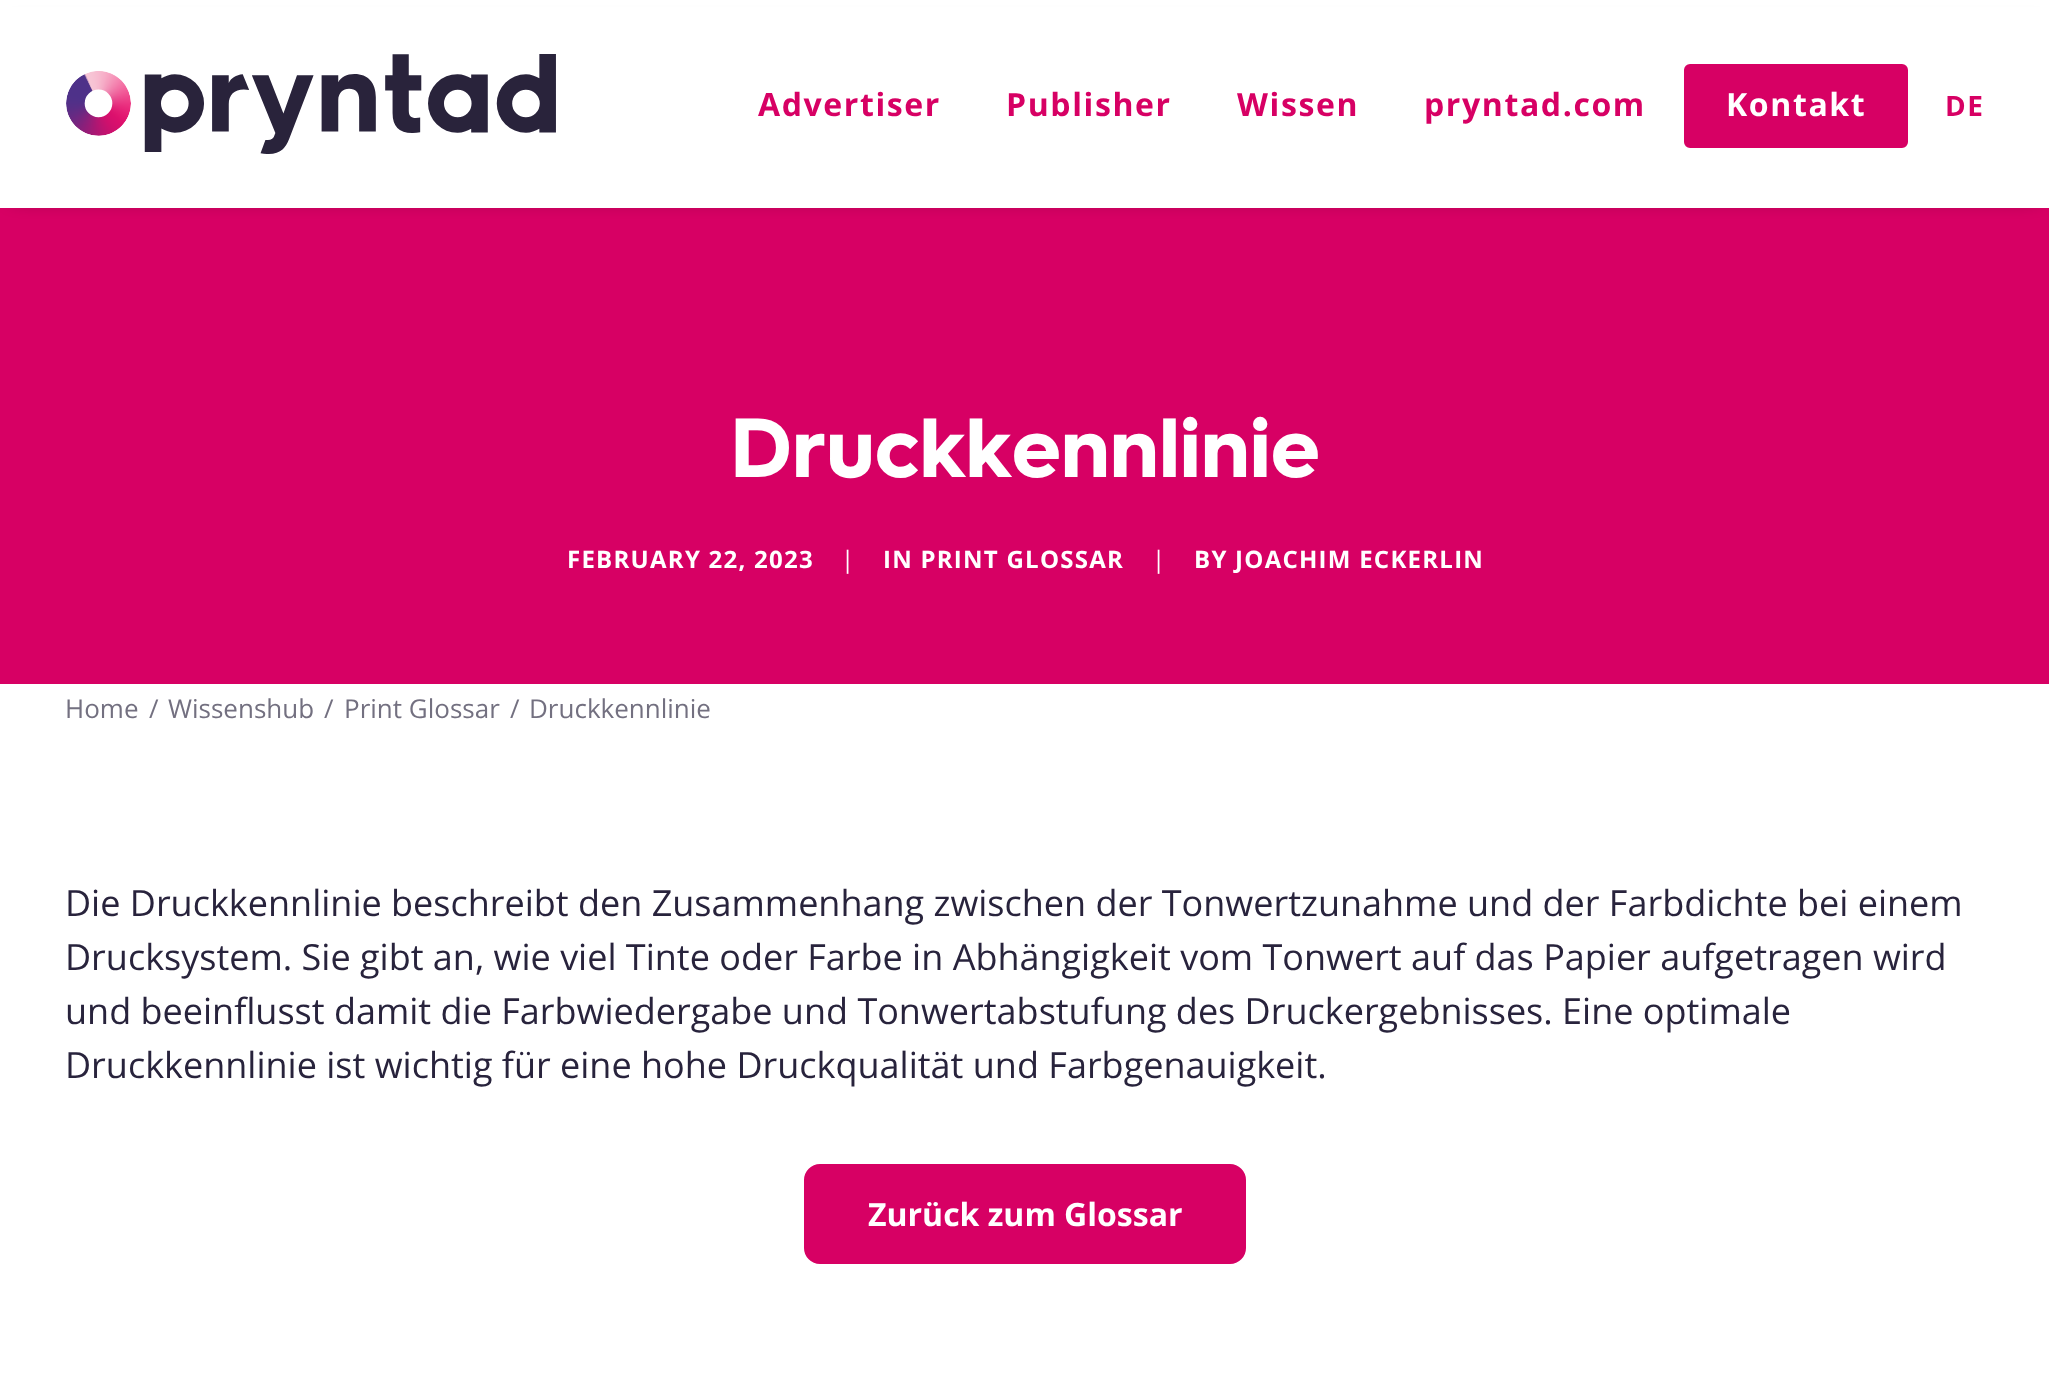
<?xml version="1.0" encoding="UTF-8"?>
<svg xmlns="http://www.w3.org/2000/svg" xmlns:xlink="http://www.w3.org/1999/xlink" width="2049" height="1385">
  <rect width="100%" height="100%" fill="#ffffff" />
  <rect y="208" width="2049" height="476" fill="#d70064" />
  <rect x="14" y="28" width="2024" height="168" fill="#000000" fill-opacity="0.6" filter="blur(10px)" />
  <rect y="7" width="2049" height="201" fill="#ffffff" />
  <image x="66" y="54" width="490" height="100" xlink:href="image1.png" />
  <rect x="1685" y="65" width="222" height="82" rx="5" fill="#d70064" stroke="#d70064" stroke-width="2" />
  <rect x="805" y="1165" width="440" height="98" rx="15" fill="#d70064" stroke="#d70064" stroke-width="2" />
  <text x="758" y="116" style="font-family: Open Sans; font-size: 32px; font-weight: bold; letter-spacing: 1.6px; fill: #d70064">Advertiser</text>
  <text x="1006" y="116" style="font-family: Open Sans; font-size: 32px; font-weight: bold; letter-spacing: 1.6px; fill: #d70064">Publisher</text>
  <text x="1237" y="116" style="font-family: Open Sans; font-size: 32px; font-weight: bold; letter-spacing: 1.6px; fill: #d70064">Wissen</text>
  <text x="1424" y="116" style="font-family: Open Sans; font-size: 32px; font-weight: bold; letter-spacing: 1.6px; fill: #d70064">pryntad.com</text>
  <text x="1726" y="116" style="font-family: Open Sans; font-size: 32px; font-weight: bold; letter-spacing: 1.6px; fill: #ffffff">Kontakt</text>
  <text x="1945" y="116" style="font-family: Open Sans; font-size: 28px; font-weight: bold; letter-spacing: 1.6px; fill: #d70064">DE</text>
  <text x="730" y="477" style="font-family: 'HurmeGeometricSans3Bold'; font-size: 84px; fill: #ffffff">Druckkennlinie</text>
  <text x="567" y="568" style="font-family: Open Sans; font-size: 24px; font-weight: bold; letter-spacing: 1.25px; fill: #ffffff">FEBRUARY 22, 2023</text>
  <text x="841" y="568" style="font-family: Open Sans; font-size: 24px; letter-spacing: 1.25px; fill: #ffffff">|</text>
  <text x="883" y="568" style="font-family: Open Sans; font-size: 24px; font-weight: bold; letter-spacing: 1.25px; fill: #ffffff">IN PRINT GLOSSAR</text>
  <text x="1152" y="568" style="font-family: Open Sans; font-size: 24px; letter-spacing: 1.25px; fill: #ffffff">|</text>
  <text x="1194" y="568" style="font-family: Open Sans; font-size: 24px; font-weight: bold; letter-spacing: 1.25px; fill: #ffffff">BY JOACHIM ECKERLIN</text>
  <text x="65" y="718" style="font-family: Open Sans; font-size: 26px; fill: #737080">Home</text>
  <text x="149" y="718" style="font-family: Open Sans; font-size: 26px; fill: #737080">/</text>
  <text x="168" y="718" style="font-family: Open Sans; font-size: 26px; fill: #737080">Wissenshub</text>
  <text x="324" y="718" style="font-family: Open Sans; font-size: 26px; fill: #737080">/</text>
  <text x="344" y="718" style="font-family: Open Sans; font-size: 26px; fill: #737080">Print Glossar</text>
  <text x="510" y="718" style="font-family: Open Sans; font-size: 26px; fill: #737080">/</text>
  <text x="529" y="718" style="font-family: Open Sans; font-size: 26px; fill: #737080">Druckkennlinie</text>
  <text x="65" y="916" style="font-family: Open Sans; font-size: 36px; fill: #28233c">Die Druckkennlinie beschreibt den Zusammenhang zwischen der Tonwertzunahme und der Farbdichte bei einem</text>
  <text x="65" y="970" style="font-family: Open Sans; font-size: 36px; fill: #28233c">Drucksystem. Sie gibt an, wie viel Tinte oder Farbe in Abhängigkeit vom Tonwert auf das Papier aufgetragen wird</text>
  <text x="65" y="1024" style="font-family: Open Sans; font-size: 36px; fill: #28233c">und beeinflusst damit die Farbwiedergabe und Tonwertabstufung des Druckergebnisses. Eine optimale</text>
  <text x="65" y="1078" style="font-family: Open Sans; font-size: 36px; fill: #28233c">Druckkennlinie ist wichtig für eine hohe Druckqualität und Farbgenauigkeit.</text>
  <text x="868" y="1226" style="font-family: Open Sans; font-size: 32px; font-weight: bold; fill: #ffffff">Zurück zum Glossar</text>
</svg>
